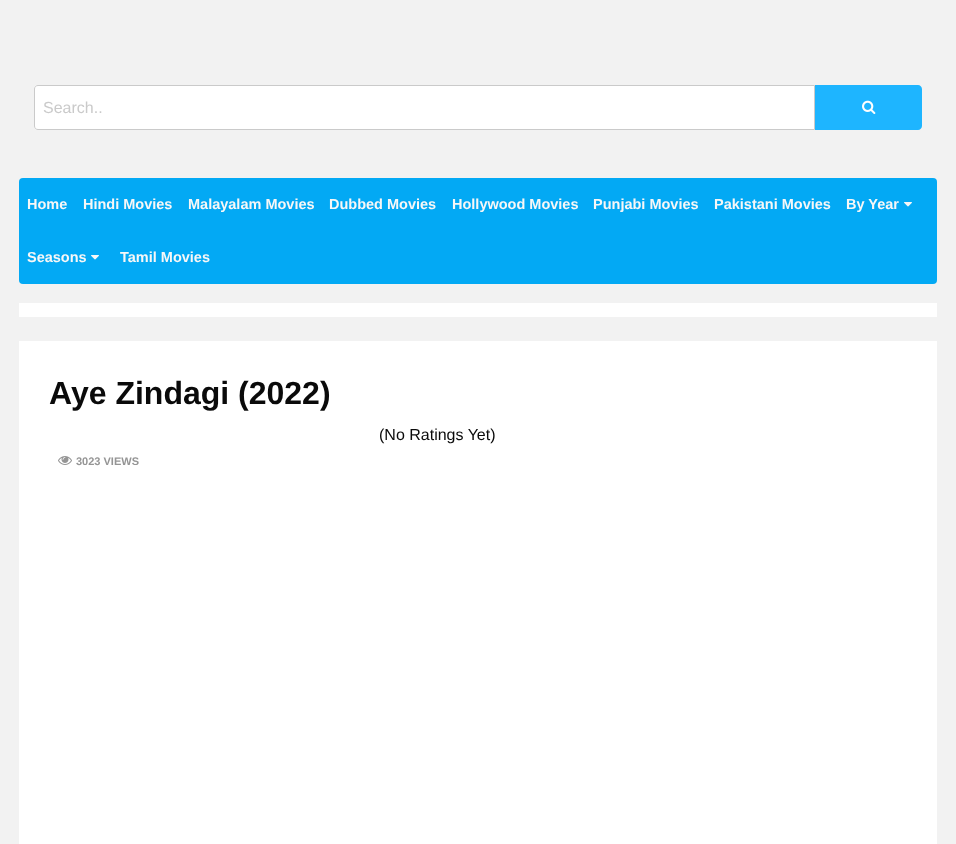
<?xml version="1.0" encoding="UTF-8"?>
<svg xmlns="http://www.w3.org/2000/svg" xmlns:xlink="http://www.w3.org/1999/xlink" width="956" height="844">
  <rect width="100%" height="100%" fill="#f2f2f2" />
  <path d="M 38 85.5 h 776.5 v 44 h -776.5 c -2 0 -3.5 -1.5 -3.5 -3.5 v -37 c 0 -2 1.5 -3.5 3.5 -3.5 z" fill="#ffffff" stroke="#cacaca" />
  <path d="M 815 85 h 103 c 2 0 4 2 4 4 v 37 c 0 2 -2 4 -4 4 h -103 z" fill="#1eb5ff" />
  <image x="862" y="100" width="14" height="14" xlink:href="image1.png" />
  <rect x="19" y="178" width="918" height="106" rx="4" fill="#03a9f4" />
  <image x="904" y="202" width="8" height="5" xlink:href="image2.png" />
  <image x="91" y="255" width="8" height="5" xlink:href="image2.png" />
  <rect x="19" y="303" width="918" height="14" fill="#ffffff" />
  <rect x="19" y="341" width="918" height="503" fill="#ffffff" />
  <image x="58" y="456" width="14" height="9" xlink:href="image3.png" />
  <text x="43" y="113" style="font-family: Liberation Sans; font-size: 16px; fill: #cacaca">Search..</text>
  <text x="27" y="209" style="font-family: Liberation Sans; font-size: 14.5px; font-weight: bold; fill: #f7f7f7">Home</text>
  <text x="83" y="209" style="font-family: Liberation Sans; font-size: 14.5px; font-weight: bold; fill: #f7f7f7">Hindi Movies</text>
  <text x="188" y="209" style="font-family: Liberation Sans; font-size: 14.5px; font-weight: bold; fill: #f7f7f7">Malayalam Movies</text>
  <text x="329" y="209" style="font-family: Liberation Sans; font-size: 14.5px; font-weight: bold; fill: #f7f7f7">Dubbed Movies</text>
  <text x="452" y="209" style="font-family: Liberation Sans; font-size: 14.5px; font-weight: bold; fill: #f7f7f7">Hollywood Movies</text>
  <text x="593" y="209" style="font-family: Liberation Sans; font-size: 14.5px; font-weight: bold; fill: #f7f7f7">Punjabi Movies</text>
  <text x="714" y="209" style="font-family: Liberation Sans; font-size: 14.5px; font-weight: bold; fill: #f7f7f7">Pakistani Movies</text>
  <text x="846" y="209" style="font-family: Liberation Sans; font-size: 14.5px; font-weight: bold; fill: #f7f7f7">By Year</text>
  <text x="27" y="262" style="font-family: Liberation Sans; font-size: 14.5px; font-weight: bold; fill: #f7f7f7">Seasons</text>
  <text x="120" y="262" style="font-family: Liberation Sans; font-size: 14.5px; font-weight: bold; fill: #f7f7f7">Tamil Movies</text>
  <text x="49" y="404" style="font-family: Liberation Sans; font-size: 32px; font-weight: bold; fill: #0a0a0a">Aye Zindagi (2022)</text>
  <text x="379" y="440" style="font-family: Liberation Sans; font-size: 16px; fill: #0a0a0a">(No Ratings Yet)</text>
  <text x="76" y="465" style="font-family: Liberation Sans; font-size: 11px; font-weight: bold; fill: #959595">3023 VIEWS</text>
</svg>
